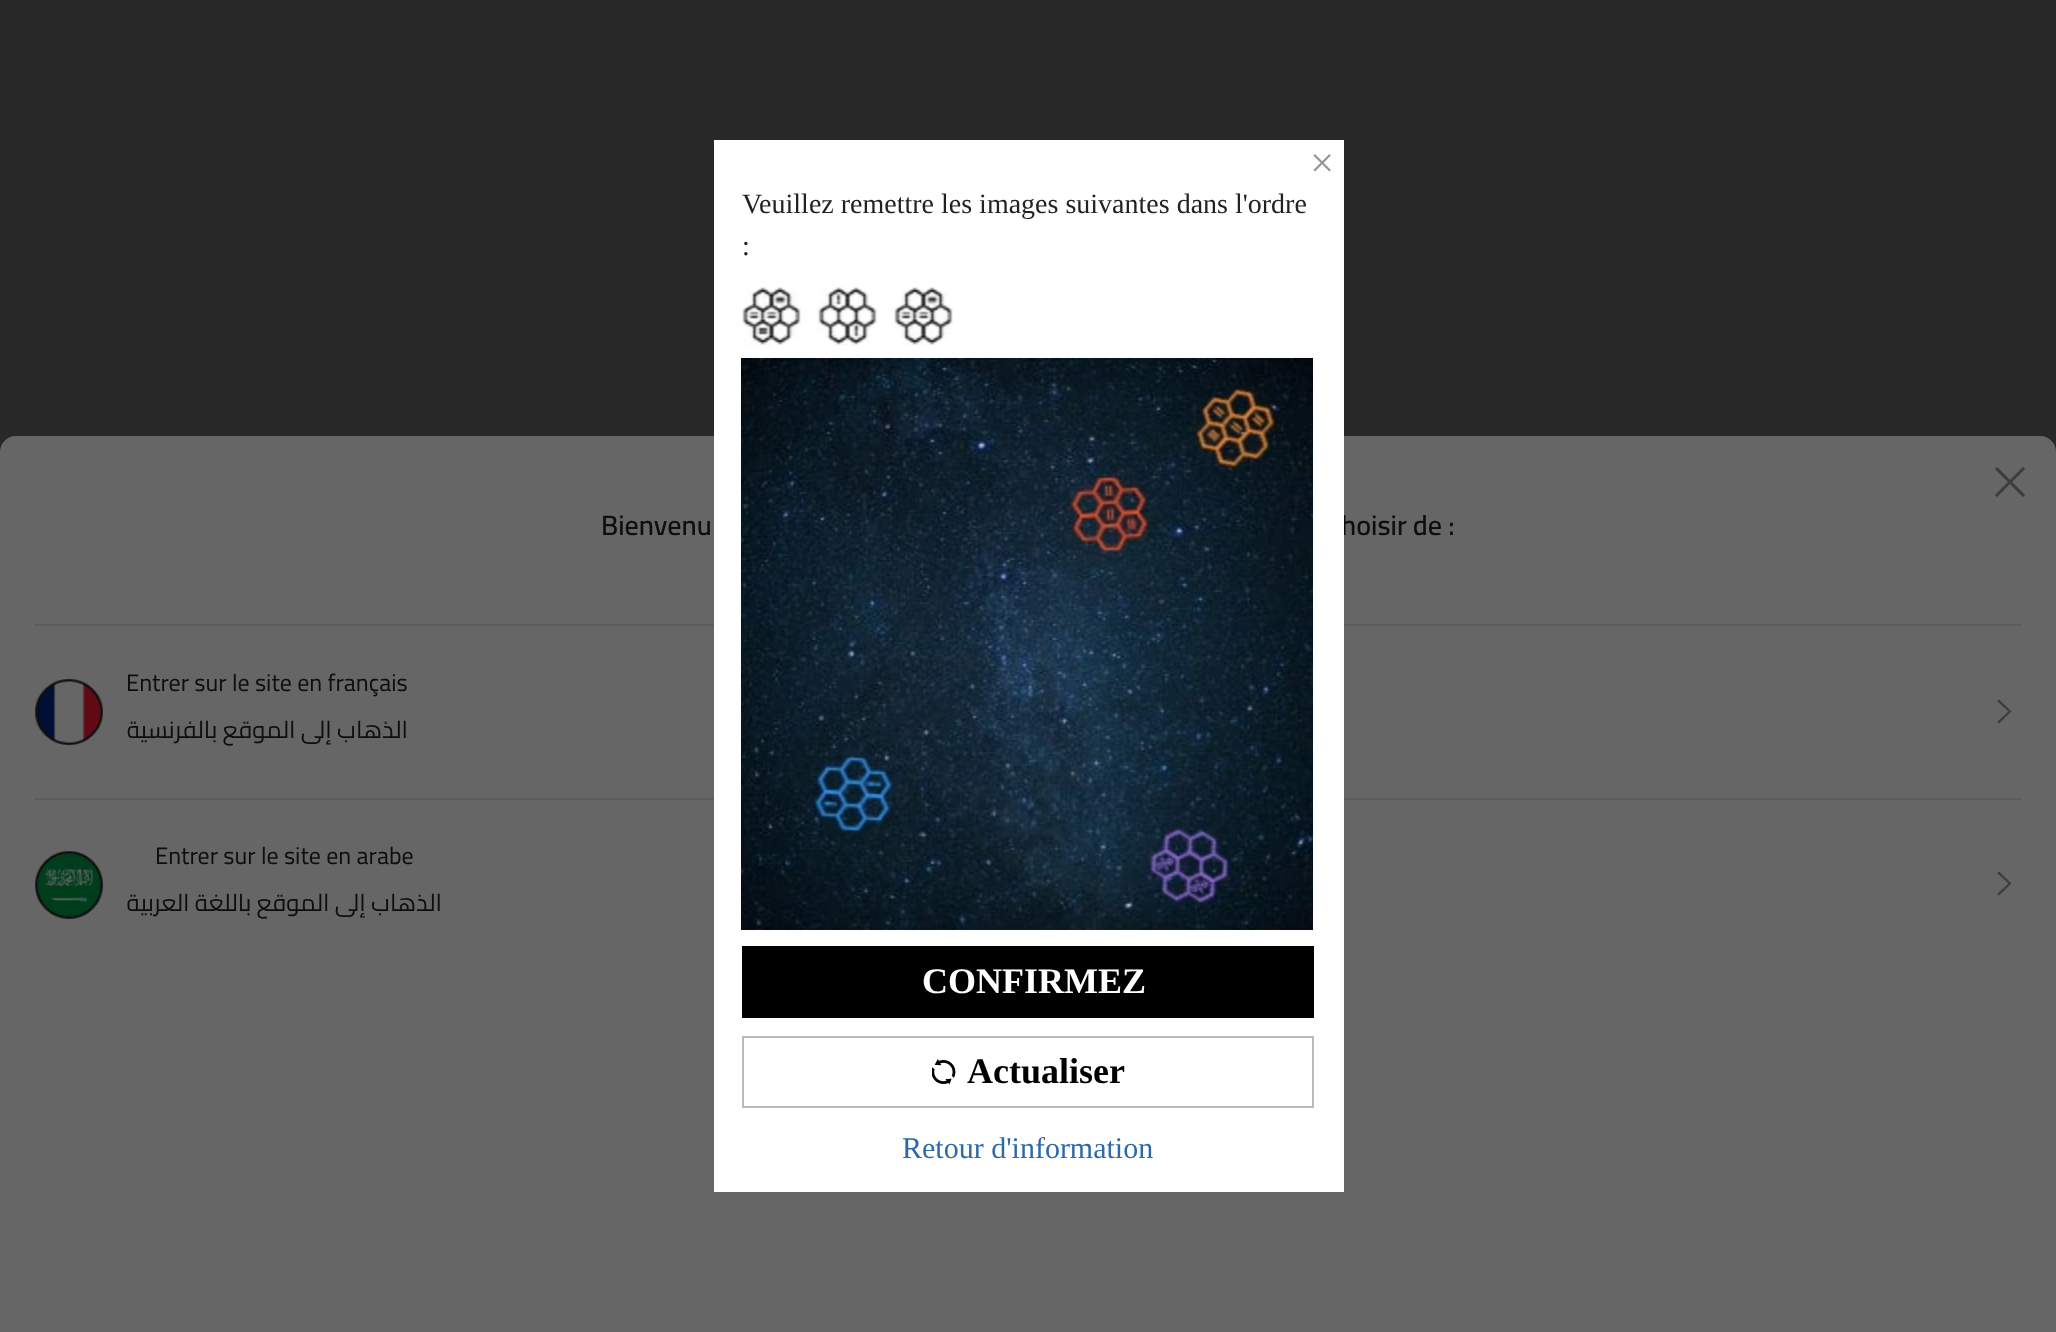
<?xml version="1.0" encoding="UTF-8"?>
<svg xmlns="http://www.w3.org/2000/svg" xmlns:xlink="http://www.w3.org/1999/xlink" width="2056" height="1332">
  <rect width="100%" height="100%" fill="#282828" />
  <path d="M 16 436 h 2024 c 9 0 16 7 16 16 v 880 h -2056 v -880 c 0 -9 7 -16 16 -16 z" fill="#666666" />
  <image x="1995" y="467" width="30" height="30" xlink:href="image4.png" />
  <rect x="34" y="624" width="1988" height="2" fill="#5c5c5c" />
  <image x="35" y="679" width="68" height="66" xlink:href="image5.png" />
  <path d="M 1999 723.5 l -2 -1.5 l 11.5 -10.5 l -11.5 -10.5 l 2 -1.5 l 12.5 12 z" fill="#3d3d3d" />
  <rect x="34" y="798" width="1988" height="2" fill="#5c5c5c" />
  <image x="35" y="851" width="68" height="68" xlink:href="image6.png" />
  <path d="M 1999 895.5 l -2 -1.5 l 11.5 -10.5 l -11.5 -10.5 l 2 -1.5 l 12.5 12 z" fill="#3d3d3d" />
  <text x="601" y="535" style="font-family: Cairo; font-size: 28px; font-weight: 600; fill: #0e0e0e">Bienvenu</text>
  <text x="1341" y="535" style="font-family: Cairo; font-size: 28px; font-weight: 600; fill: #0e0e0e">hoisir de :</text>
  <rect x="714" y="140" width="630" height="1052" fill="#ffffff" />
  <text x="1310" y="177" style="font-family: Liberation Serif; font-size: 43px; fill: #959595">×</text>
  <image x="741" y="358" width="572" height="572" xlink:href="image2.png" />
  <text x="742" y="255" style="font-family: Liberation Serif; font-size: 28px; fill: #222222">:</text>
  <text x="742" y="213" style="font-family: Liberation Serif; font-size: 28px; fill: #222222">Veuillez remettre les images suivantes dans l'ordre</text>
  <image x="742" y="287" width="211" height="59" xlink:href="image1.png" />
  <rect x="743" y="1037" width="570" height="70" fill="none" stroke="#bbbbbb" stroke-width="2" />
  <image x="932" y="1059" width="24" height="26" xlink:href="image3.png" />
  <text x="902" y="1158" style="font-family: Liberation Serif; font-size: 30px; fill: #2d68a8">Retour d'information</text>
  <text x="967" y="1083" style="font-family: Liberation Serif; font-size: 36px; font-weight: bold; fill: #000000">Actualiser</text>
  <rect x="742" y="946" width="572" height="72" fill="#000000" />
  <text x="922" y="993" style="font-family: Liberation Serif; font-size: 36px; font-weight: bold; fill: #ffffff">CONFIRMEZ</text>
  <text x="126" y="691" style="font-family: Cairo; font-size: 24px; fill: #0e0e0e">Entrer sur le site en français</text>
  <text x="408" y="738" style="font-family: Cairo; font-size: 24px; direction: rtl; fill: #0e0e0e">الذهاب إلى الموقع بالفرنسية</text>
  <text x="155" y="864" style="font-family: Cairo; font-size: 24px; fill: #0e0e0e">Entrer sur le site en arabe</text>
  <text x="442" y="911" style="font-family: Cairo; font-size: 24px; direction: rtl; fill: #0e0e0e">الذهاب إلى الموقع باللغة العربية</text>
</svg>
